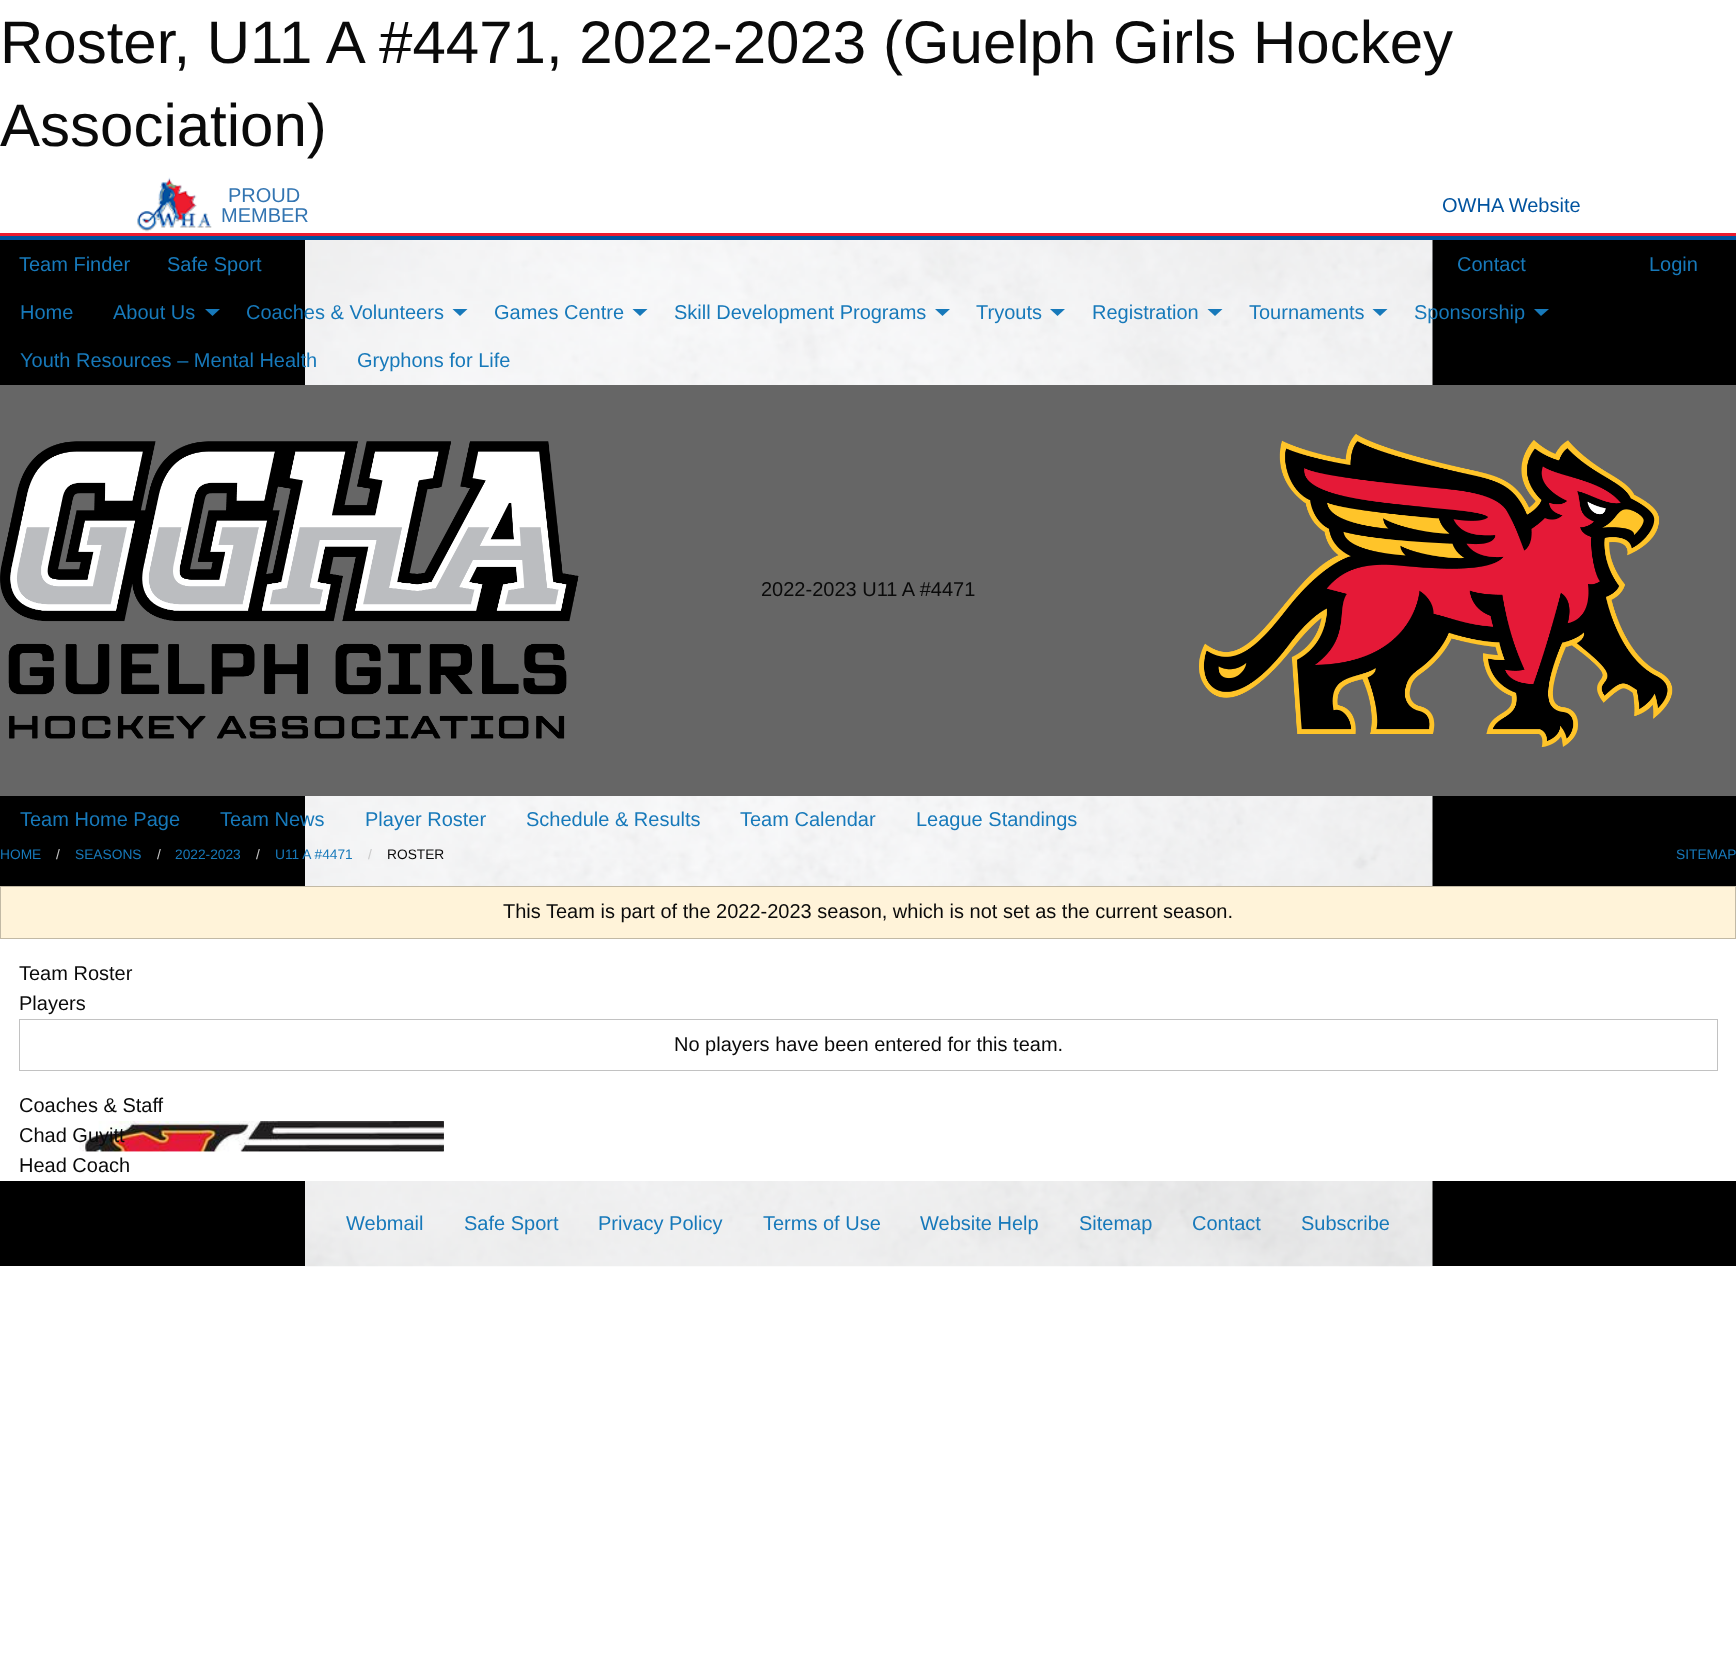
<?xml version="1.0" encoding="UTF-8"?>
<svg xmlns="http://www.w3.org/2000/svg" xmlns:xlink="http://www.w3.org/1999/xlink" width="1736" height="1661">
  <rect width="100%" height="100%" fill="#ffffff" />
  <image x="137" y="177" width="75" height="55" xlink:href="image1.png" />
  <rect y="233" width="1736" height="3" fill="#ed1b2d" />
  <rect y="236" width="1736" height="4" fill="#00539f" />
  <rect y="240" width="1736" height="1026" fill="#000000" />
  <image x="305" y="240" width="1128" height="1027" xlink:href="image2.png" />
  <path d="M 205 309 h 15 l -7.5 7 z" fill="#1779ba" />
  <path d="M 452.5 309 h 15 l -7.5 7 z" fill="#1779ba" />
  <path d="M 632.5 309 h 15 l -7.5 7 z" fill="#1779ba" />
  <path d="M 935 309 h 15 l -7.5 7 z" fill="#1779ba" />
  <path d="M 1050 309 h 15 l -7.5 7 z" fill="#1779ba" />
  <path d="M 1207.5 309 h 15 l -7.5 7 z" fill="#1779ba" />
  <path d="M 1372.5 309 h 15 l -7.5 7 z" fill="#1779ba" />
  <path d="M 1534 309 h 15 l -8 7 z" fill="#1779ba" />
  <rect y="385" width="1736" height="411" fill="#666666" />
  <image x="0" y="441" width="579" height="298" xlink:href="image3.png" />
  <image x="1199" y="434" width="474" height="313" xlink:href="image4.png" />
  <rect y="939" width="1736" height="242" fill="#ffffff" />
  <rect x="0.5" y="886.5" width="1735" height="52" fill="#fff3d9" stroke="#c2b9a5" />
  <rect x="19.5" y="1019.5" width="1698" height="51" fill="none" stroke="#c2c2c2" />
  <image x="79" y="1121" width="365" height="31" xlink:href="image5.png" />
  <image x="85" y="1121" width="359" height="31" xlink:href="image6.png" />
  <text x="0" y="63" style="font-family: Liberation Sans; font-size: 60px; fill: #0a0a0a">Roster, U11 A #4471, 2022-2023 (Guelph Girls Hockey</text>
  <text x="0" y="146" style="font-family: Liberation Sans; font-size: 60px; fill: #0a0a0a">Association)</text>
  <text x="228" y="202" style="font-family: Liberation Sans; font-size: 20px; fill: #3375b2">PROUD</text>
  <text x="221" y="222" style="font-family: Liberation Sans; font-size: 20px; fill: #3375b2">MEMBER</text>
  <text x="1442" y="212" style="font-family: Liberation Sans; font-size: 20px; fill: #00539f">OWHA Website</text>
  <text x="19" y="271" style="font-family: Liberation Sans; font-size: 20px; fill: #1779ba">Team Finder</text>
  <text x="167" y="271" style="font-family: Liberation Sans; font-size: 20px; fill: #1779ba">Safe Sport</text>
  <text x="1457" y="271" style="font-family: Liberation Sans; font-size: 20px; fill: #1779ba">Contact</text>
  <text x="1649" y="271" style="font-family: Liberation Sans; font-size: 20px; fill: #1779ba">Login</text>
  <text x="20" y="319" style="font-family: Liberation Sans; font-size: 20px; fill: #1779ba">Home</text>
  <text x="113" y="319" style="font-family: Liberation Sans; font-size: 20px; fill: #1779ba">About Us</text>
  <text x="246" y="319" style="font-family: Liberation Sans; font-size: 20px; fill: #1779ba">Coaches &amp; Volunteers</text>
  <text x="494" y="319" style="font-family: Liberation Sans; font-size: 20px; fill: #1779ba">Games Centre</text>
  <text x="674" y="319" style="font-family: Liberation Sans; font-size: 20px; fill: #1779ba">Skill Development Programs</text>
  <text x="976" y="319" style="font-family: Liberation Sans; font-size: 20px; fill: #1779ba">Tryouts</text>
  <text x="1092" y="319" style="font-family: Liberation Sans; font-size: 20px; fill: #1779ba">Registration</text>
  <text x="1249" y="319" style="font-family: Liberation Sans; font-size: 20px; fill: #1779ba">Tournaments</text>
  <text x="1414" y="319" style="font-family: Liberation Sans; font-size: 20px; fill: #1779ba">Sponsorship</text>
  <text x="20" y="367" style="font-family: Liberation Sans; font-size: 20px; fill: #1779ba">Youth Resources – Mental Health</text>
  <text x="357" y="367" style="font-family: Liberation Sans; font-size: 20px; fill: #1779ba">Gryphons for Life</text>
  <text x="761" y="596" style="font-family: Liberation Sans; font-size: 20px; fill: #0a0a0a">2022-2023 U11 A #4471</text>
  <text x="20" y="826" style="font-family: Liberation Sans; font-size: 20px; fill: #1779ba">Team Home Page</text>
  <text x="220" y="826" style="font-family: Liberation Sans; font-size: 20px; fill: #1779ba">Team News</text>
  <text x="365" y="826" style="font-family: Liberation Sans; font-size: 20px; fill: #1779ba">Player Roster</text>
  <text x="526" y="826" style="font-family: Liberation Sans; font-size: 20px; fill: #1779ba">Schedule &amp; Results</text>
  <text x="740" y="826" style="font-family: Liberation Sans; font-size: 20px; fill: #1779ba">Team Calendar</text>
  <text x="916" y="826" style="font-family: Liberation Sans; font-size: 20px; fill: #1779ba">League Standings</text>
  <text x="0" y="859" style="font-family: Liberation Sans; font-size: 13.75px; fill: #1779ba">HOME</text>
  <text x="56" y="859" style="font-family: Liberation Sans; font-size: 13.75px; fill: #cacaca">/</text>
  <text x="75" y="859" style="font-family: Liberation Sans; font-size: 13.75px; fill: #1779ba">SEASONS</text>
  <text x="157" y="859" style="font-family: Liberation Sans; font-size: 13.75px; fill: #cacaca">/</text>
  <text x="175" y="859" style="font-family: Liberation Sans; font-size: 13.75px; fill: #1779ba">2022-2023</text>
  <text x="256" y="859" style="font-family: Liberation Sans; font-size: 13.75px; fill: #cacaca">/</text>
  <text x="275" y="859" style="font-family: Liberation Sans; font-size: 13.75px; fill: #1779ba">U11 A #4471</text>
  <text x="368" y="859" style="font-family: Liberation Sans; font-size: 13.75px; fill: #cacaca">/</text>
  <text x="387" y="859" style="font-family: Liberation Sans; font-size: 13.75px; fill: #0a0a0a">ROSTER</text>
  <text x="1676" y="859" style="font-family: Liberation Sans; font-size: 13.75px; fill: #1779ba">SITEMAP</text>
  <text x="503" y="918" style="font-family: Liberation Sans; font-size: 20px; fill: #0a0a0a">This Team is part of the 2022-2023 season, which is not set as the current season.</text>
  <text x="19" y="980" style="font-family: Liberation Sans; font-size: 20px; fill: #0a0a0a">Team Roster</text>
  <text x="19" y="1010" style="font-family: Liberation Sans; font-size: 20px; fill: #0a0a0a">Players</text>
  <text x="674" y="1051" style="font-family: Liberation Sans; font-size: 20px; fill: #0a0a0a">No players have been entered for this team.</text>
  <text x="19" y="1112" style="font-family: Liberation Sans; font-size: 20px; fill: #0a0a0a">Coaches &amp; Staff</text>
  <text x="19" y="1142" style="font-family: Liberation Sans; font-size: 20px; fill: #0a0a0a">Chad Guyitt</text>
  <text x="19" y="1172" style="font-family: Liberation Sans; font-size: 20px; fill: #0a0a0a">Head Coach</text>
  <text x="346" y="1230" style="font-family: Liberation Sans; font-size: 20px; fill: #1779ba">Webmail</text>
  <text x="464" y="1230" style="font-family: Liberation Sans; font-size: 20px; fill: #1779ba">Safe Sport</text>
  <text x="598" y="1230" style="font-family: Liberation Sans; font-size: 20px; fill: #1779ba">Privacy Policy</text>
  <text x="763" y="1230" style="font-family: Liberation Sans; font-size: 20px; fill: #1779ba">Terms of Use</text>
  <text x="920" y="1230" style="font-family: Liberation Sans; font-size: 20px; fill: #1779ba">Website Help</text>
  <text x="1079" y="1230" style="font-family: Liberation Sans; font-size: 20px; fill: #1779ba">Sitemap</text>
  <text x="1192" y="1230" style="font-family: Liberation Sans; font-size: 20px; fill: #1779ba">Contact</text>
  <text x="1301" y="1230" style="font-family: Liberation Sans; font-size: 20px; fill: #1779ba">Subscribe</text>
</svg>
